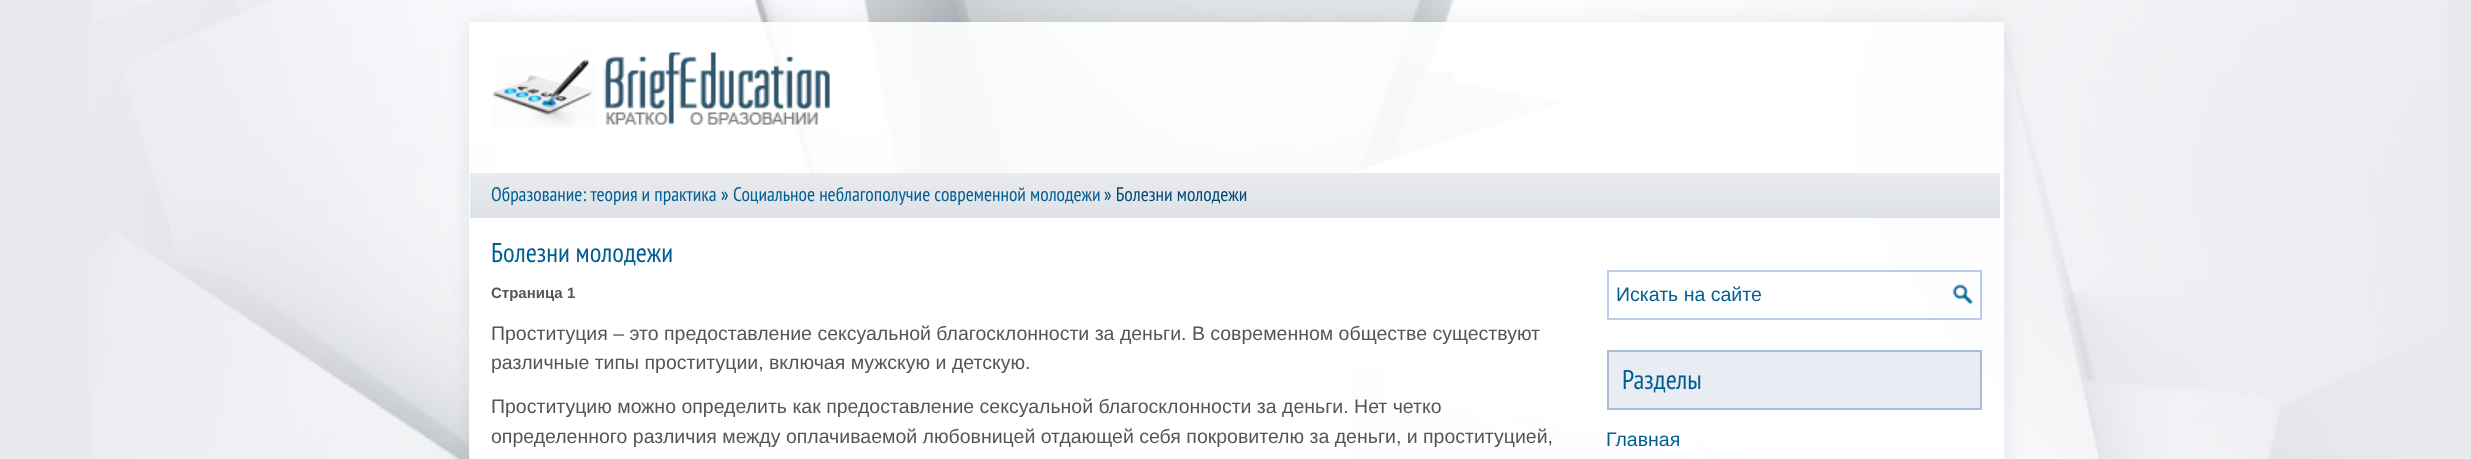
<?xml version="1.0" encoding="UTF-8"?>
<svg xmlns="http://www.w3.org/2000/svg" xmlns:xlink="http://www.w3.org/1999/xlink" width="2471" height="459">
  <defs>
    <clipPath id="clip1"><path d="M 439 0 h 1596 v 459 h -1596 z m 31 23 h 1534 v 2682 h -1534 z" clip-rule="evenodd" /></clipPath>
    <linearGradient id="g1" gradientUnits="userSpaceOnUse" x1="1235" y1="172" x2="1235" y2="218"><stop offset="0" stop-color="#eaebef" /><stop offset="1" stop-color="#dde1e5" /></linearGradient>
  </defs>
  <rect width="100%" height="100%" fill="#e9eaee" />
  <image x="91" y="0" width="2356" height="459" xlink:href="image1.png" />
  <g clip-path="url(#clip1)">
    <rect x="470" y="23" width="1534" height="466" fill="#002e51" fill-opacity="0.1" filter="blur(10px)" />
  </g>
  <rect x="469" y="22" width="1535" height="437" fill="#ffffff" fill-opacity="0.9" />
  <image x="492" y="52" width="338" height="77" xlink:href="image2.png" />
  <rect x="470" y="173" width="1530" height="45" fill="url(#g1)" />
  <rect x="470" y="218" width="881" height="241" fill="#ffffff" />
  <image x="1952" y="284" width="21" height="21" xlink:href="image3.png" />
  <rect x="1608" y="271" width="373" height="48" fill="none" stroke="#bacbee" stroke-width="2" />
  <rect x="1608" y="351" width="373" height="58" fill="#e9ecf2" stroke="#aabdd6" stroke-width="2" />
  <text x="491" y="201" style="font-family: PT Sans Narrow; font-size: 19.5px; fill: #005e91">Образование: теория и практика</text>
  <text x="721" y="201" style="font-family: PT Sans Narrow; font-size: 19.5px; fill: #004b73">»</text>
  <text x="733" y="201" style="font-family: PT Sans Narrow; font-size: 19.5px; fill: #005e91">Социальное неблагополучие современной молодежи</text>
  <text x="1104" y="201" style="font-family: PT Sans Narrow; font-size: 19.5px; fill: #004b73">» Болезни молодежи</text>
  <text x="491" y="262" style="font-family: PT Sans Narrow; font-size: 27px; fill: #005e91">Болезни молодежи</text>
  <text x="491" y="298" style="font-family: Liberation Sans; font-size: 15px; font-weight: bold; fill: #555555">Страница 1</text>
  <text x="491" y="340" style="font-family: Liberation Sans; font-size: 19.5px; fill: #555555">Проституция – это предоставление сексуальной благосклонности за деньги. В современном обществе существуют</text>
  <text x="491" y="369" style="font-family: Liberation Sans; font-size: 19.5px; fill: #555555">различные типы проституции, включая мужскую и детскую.</text>
  <text x="491" y="413" style="font-family: Liberation Sans; font-size: 19.5px; fill: #555555">Проституцию можно определить как предоставление сексуальной благосклонности за деньги. Нет четко</text>
  <text x="491" y="443" style="font-family: Liberation Sans; font-size: 19.5px; fill: #555555">определенного различия между оплачиваемой любовницей отдающей себя покровителю за деньги, и проституцией,</text>
  <text x="1616" y="301" style="font-family: Liberation Sans; font-size: 19.5px; fill: #005e91">Искать на сайте</text>
  <text x="1622" y="389" style="font-family: PT Sans Narrow; font-size: 27px; fill: #005e91">Разделы</text>
  <text x="1606" y="446" style="font-family: Liberation Sans; font-size: 19.5px; fill: #005e91">Главная</text>
</svg>
